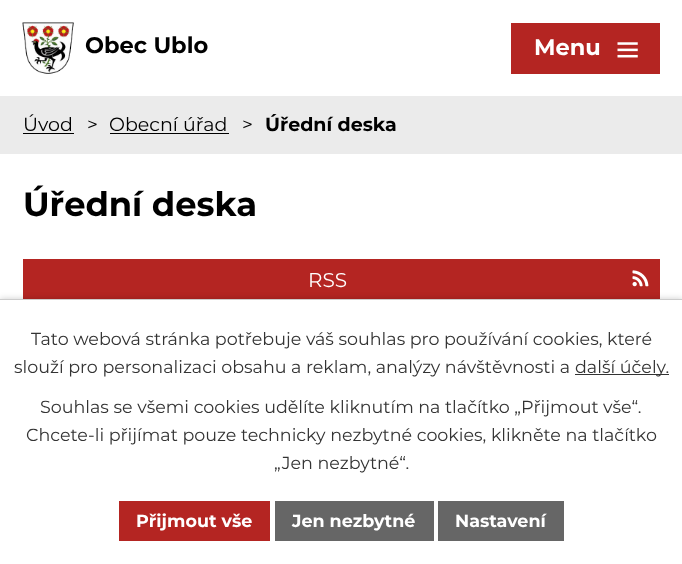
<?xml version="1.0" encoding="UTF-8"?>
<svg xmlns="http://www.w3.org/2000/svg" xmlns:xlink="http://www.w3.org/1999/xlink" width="682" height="564">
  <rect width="100%" height="100%" fill="#ffffff" />
  <image x="22" y="22" width="52" height="52" xlink:href="image1.png" />
  <rect x="511" y="23" width="149" height="51" fill="#b42522" />
  <image x="617" y="42" width="21" height="16" xlink:href="image2.png" />
  <rect y="96" width="682" height="58" fill="#ebebeb" />
  <rect x="23" y="133" width="51" height="1" fill="#000000" />
  <rect x="110" y="133" width="119" height="1" fill="#000000" />
  <rect x="23" y="259" width="637" height="40" fill="#b42522" />
  <image x="632" y="270" width="17" height="17" xlink:href="image3.png" />
  <rect y="299" width="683" height="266" fill="#000000" fill-opacity="0.2" filter="blur(3px)" />
  <rect y="300" width="682" height="264" fill="#ffffff" />
  <rect y="299" width="682" height="1" fill="#cccccc" />
  <rect x="575" y="374" width="94" height="1" fill="#333333" />
  <rect x="119" y="501" width="151" height="40" fill="#b42522" />
  <rect x="275" y="501" width="159" height="40" fill="#666666" />
  <rect x="438" y="501" width="126" height="40" fill="#666666" />
  <text x="85" y="53" style="font-family: Montserrat; font-size: 22.5px; font-weight: bold; fill: #000000">Obec Ublo</text>
  <text x="534" y="55" style="font-family: Montserrat; font-size: 22.5px; font-weight: bold; fill: #ffffff">Menu</text>
  <text x="23" y="131" style="font-family: Montserrat; font-size: 19px; fill: #000000">Úvod</text>
  <text x="87" y="131" style="font-family: Montserrat; font-size: 19px; fill: #000000">&gt;</text>
  <text x="109" y="131" style="font-family: Montserrat; font-size: 19px; fill: #000000">Obecní úřad</text>
  <text x="242" y="131" style="font-family: Montserrat; font-size: 19px; fill: #000000">&gt;</text>
  <text x="265" y="131" style="font-family: Montserrat; font-size: 19px; font-weight: bold; fill: #000000">Úřední deska</text>
  <text x="23" y="216" style="font-family: Montserrat; font-size: 33.75px; font-weight: bold; fill: #000000">Úřední deska</text>
  <text x="308" y="287" style="font-family: Montserrat; font-size: 20px; fill: #ffffff">RSS</text>
  <text x="31" y="345" style="font-family: Montserrat; font-size: 17.5px; fill: #333333">Tato webová stránka potřebuje váš souhlas pro používání cookies, které</text>
  <text x="14" y="373" style="font-family: Montserrat; font-size: 17.5px; fill: #333333">slouží pro personalizaci obsahu a reklam, analýzy návštěvnosti a</text>
  <text x="575" y="373" style="font-family: Montserrat; font-size: 17.5px; fill: #333333">další účely.</text>
  <text x="40" y="413" style="font-family: Montserrat; font-size: 17.5px; fill: #333333">Souhlas se všemi cookies udělíte kliknutím na tlačítko „Přijmout vše“.</text>
  <text x="26" y="441" style="font-family: Montserrat; font-size: 17.5px; fill: #333333">Chcete-li přijímat pouze technicky nezbytné cookies, klikněte na tlačítko</text>
  <text x="274" y="469" style="font-family: Montserrat; font-size: 17.5px; fill: #333333">„Jen nezbytné“.</text>
  <text x="136" y="527" style="font-family: Montserrat; font-size: 17.5px; font-weight: bold; fill: #ffffff">Přijmout vše</text>
  <text x="292" y="527" style="font-family: Montserrat; font-size: 17.5px; font-weight: bold; fill: #ffffff">Jen nezbytné</text>
  <text x="455" y="527" style="font-family: Montserrat; font-size: 17.5px; font-weight: bold; fill: #ffffff">Nastavení</text>
</svg>
